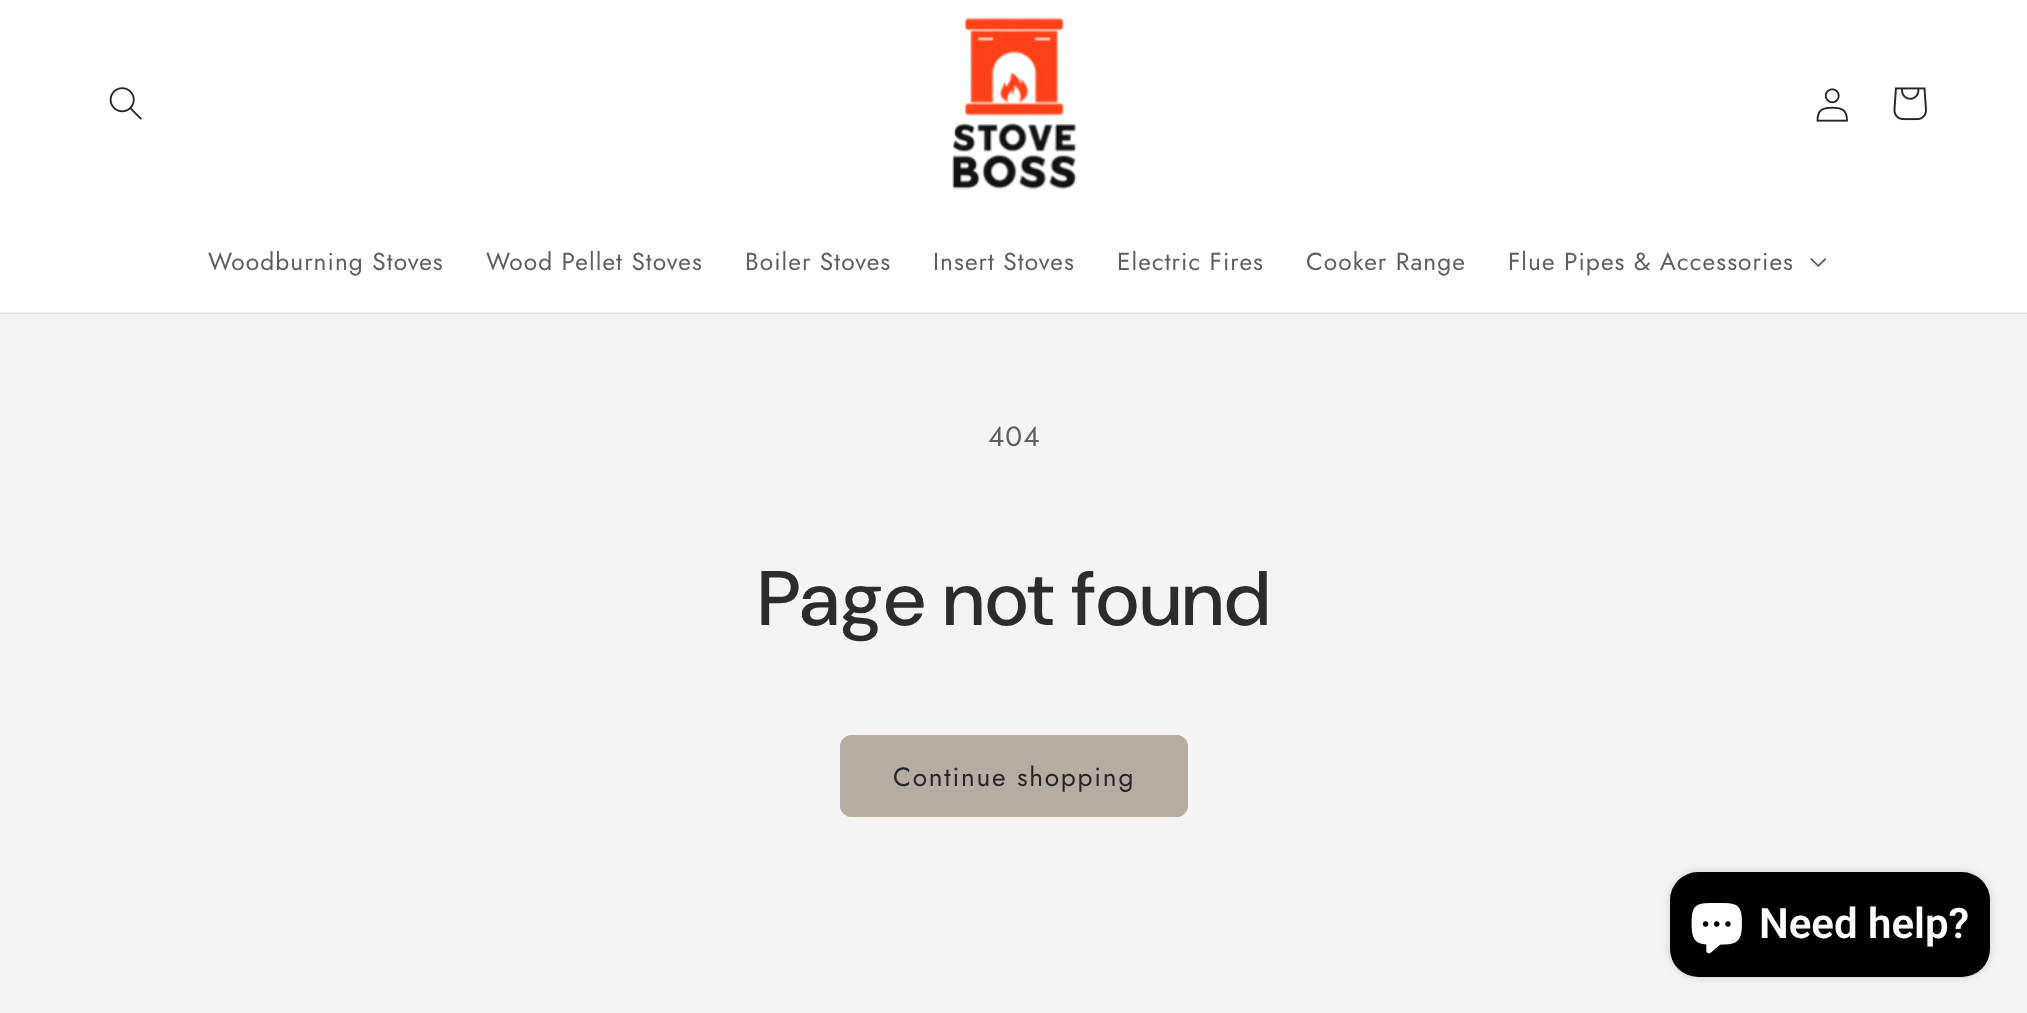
<?xml version="1.0" encoding="UTF-8"?>
<svg xmlns="http://www.w3.org/2000/svg" xmlns:xlink="http://www.w3.org/1999/xlink" width="2027" height="1013">
  <rect width="100%" height="100%" fill="#f4f4f4" />
  <rect y="313" width="2027" height="1" fill="#e4e4e4" />
  <rect width="2027" height="312" fill="#ffffff" />
  <rect y="312" width="2027" height="1" fill="#eeeeee" />
  <image x="109" y="87" width="33" height="33" xlink:href="image1.png" />
  <image x="952" y="17" width="125" height="173" xlink:href="image2.png" />
  <image x="1816" y="88" width="32" height="34" xlink:href="image3.png" />
  <image x="1893" y="87" width="34" height="34" xlink:href="image4.png" />
  <image x="1810" y="258" width="16" height="9" xlink:href="image5.png" />
  <rect x="840" y="735" width="348" height="82" rx="12" fill="#b7aca2" />
  <rect x="841" y="736" width="346" height="80" rx="11" fill="none" stroke="#b7aca2" stroke-width="2" />
  <rect x="1670" y="872" width="320" height="105" rx="28" fill="#000000" fill-opacity="0.15" filter="blur(4.5px)" />
  <rect x="1670" y="872" width="320" height="105" rx="28" fill="#000000" />
  <image x="1691" y="903" width="51" height="51" xlink:href="image6.png" />
  <text x="208" y="270" style="font-family: Jost; font-size: 24.5px; letter-spacing: 1.05px; fill: #5d5e5f">Woodburning Stoves</text>
  <text x="486" y="270" style="font-family: Jost; font-size: 24.5px; letter-spacing: 1.05px; fill: #5d5e5f">Wood Pellet Stoves</text>
  <text x="745" y="270" style="font-family: Jost; font-size: 24.5px; letter-spacing: 1.05px; fill: #5d5e5f">Boiler Stoves</text>
  <text x="933" y="270" style="font-family: Jost; font-size: 24.5px; letter-spacing: 1.05px; fill: #5d5e5f">Insert Stoves</text>
  <text x="1117" y="270" style="font-family: Jost; font-size: 24.5px; letter-spacing: 1.05px; fill: #5d5e5f">Electric Fires</text>
  <text x="1306" y="270" style="font-family: Jost; font-size: 24.5px; letter-spacing: 1.05px; fill: #5d5e5f">Cooker Range</text>
  <text x="1508" y="270" style="font-family: Jost; font-size: 24.5px; letter-spacing: 1.05px; fill: #5d5e5f">Flue Pipes &amp; Accessories</text>
  <text x="988" y="446" style="font-family: Jost; font-size: 28px; letter-spacing: 1.05px; fill: #5d5e5f">404</text>
  <text x="758" y="625" style="font-family: DM Sans; font-size: 77px; font-weight: 500; letter-spacing: 1.2px; fill: #2b2c2d">Page not found</text>
  <text x="893" y="786" style="font-family: Jost; font-size: 26.25px; letter-spacing: 1.75px; fill: #262626">Continue shopping</text>
  <text x="1759" y="938" style="font-family: Roboto; font-size: 42px; font-weight: 600; fill: #ffffff">Need help?</text>
</svg>
